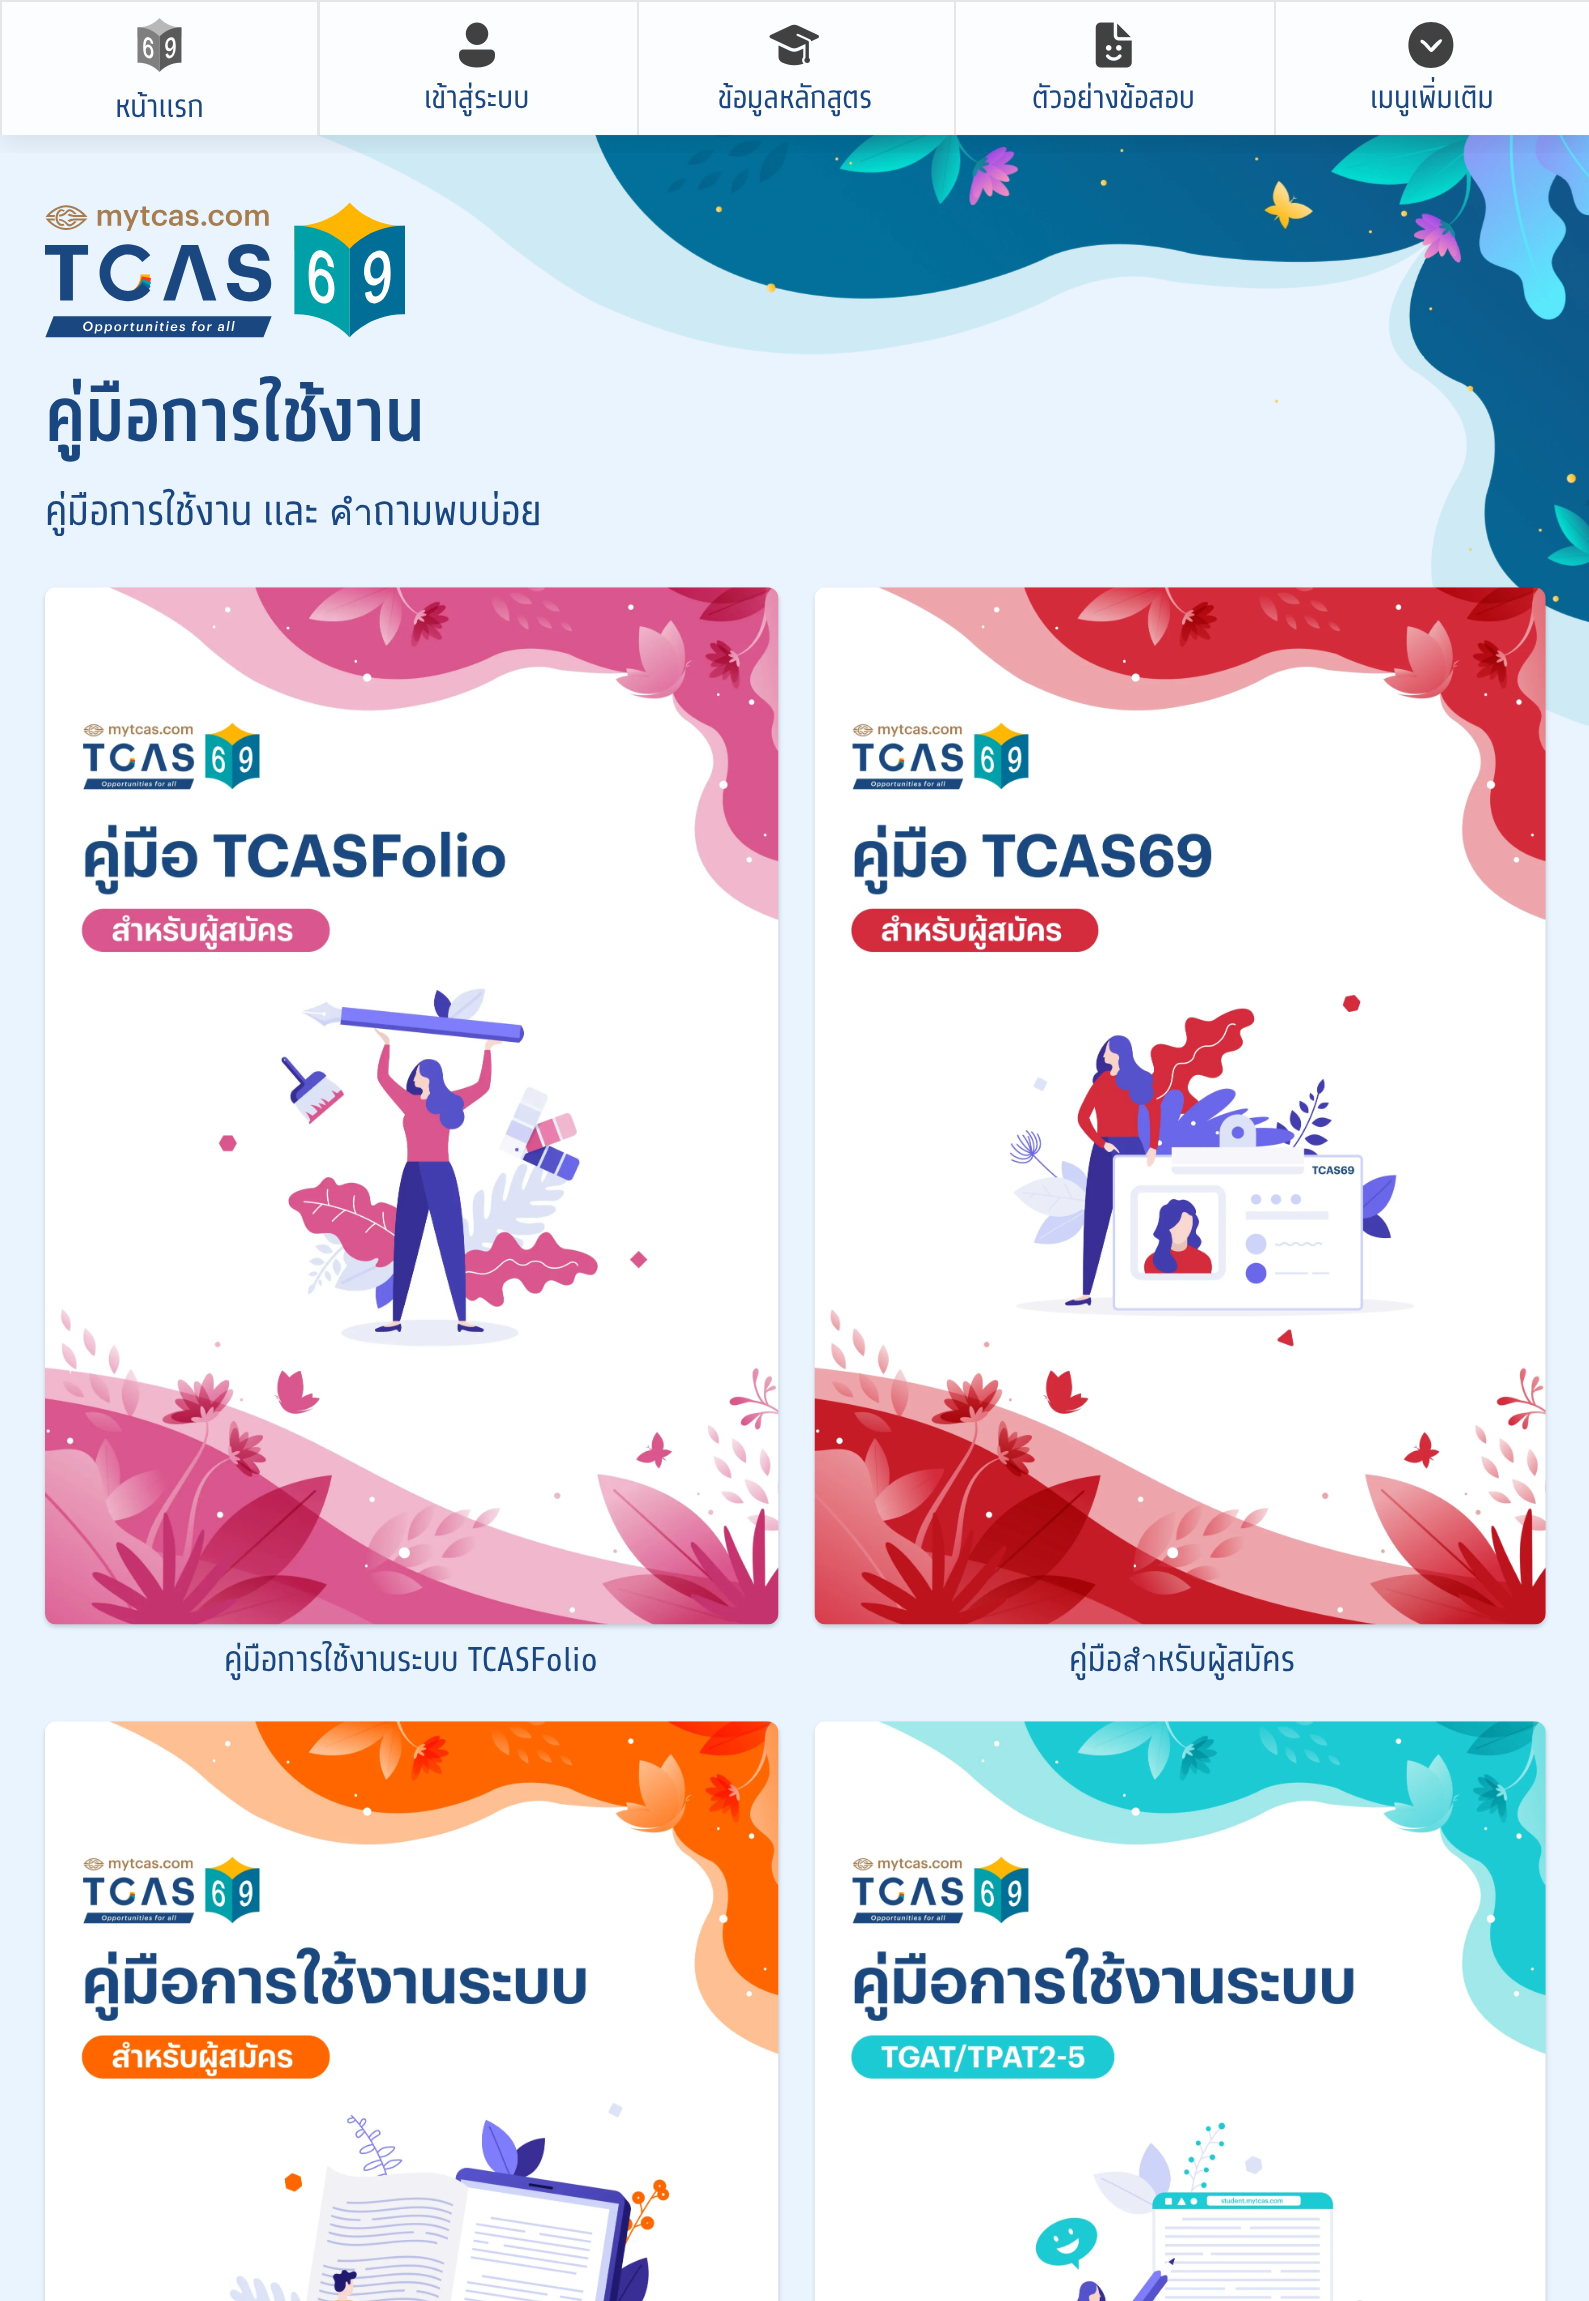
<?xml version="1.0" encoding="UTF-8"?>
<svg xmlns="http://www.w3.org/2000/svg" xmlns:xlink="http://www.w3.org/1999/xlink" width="1589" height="2301">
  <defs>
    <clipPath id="clip1"><rect x="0" y="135" width="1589" height="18" /></clipPath>
    <clipPath id="clip2"><rect width="317" height="135" /></clipPath>
    <clipPath id="clip3"><rect x="317" width="320" height="135" /></clipPath>
    <clipPath id="clip4"><rect x="637" width="317" height="135" /></clipPath>
    <clipPath id="clip5"><rect x="954" width="320" height="135" /></clipPath>
    <clipPath id="clip6"><rect x="1274" width="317" height="135" /></clipPath>
  </defs>
  <rect width="100%" height="100%" fill="#e9f4ff" />
  <image x="318" y="134" width="1271" height="592" xlink:href="image1.png" />
  <g clip-path="url(#clip1)">
    <rect y="9" width="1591" height="135" fill="#000000" fill-opacity="0.08" filter="blur(13.5px)" />
  </g>
  <rect x="2" y="2" width="1587" height="133" fill="#ffffff" fill-opacity="0.8" />
  <g clip-path="url(#clip2)">
    <path d="M -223 -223 h 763 v 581 h -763 z m 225 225 h 318 v 135 h -318 z" fill="#e6e6e6" fill-rule="evenodd" />
  </g>
  <image x="137" y="18" width="45" height="54" xlink:href="image2.png" />
  <g clip-path="url(#clip3)">
    <path d="M 94 -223 h 766 v 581 h -766 z m 226 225 h 319 v 135 h -319 z" fill="#e6e6e6" fill-rule="evenodd" />
  </g>
  <image x="459" y="22" width="36" height="46" xlink:href="image3.png" />
  <g clip-path="url(#clip4)">
    <path d="M 414 -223 h 763 v 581 h -763 z m 225 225 h 317 v 135 h -317 z" fill="#e6e6e6" fill-rule="evenodd" />
  </g>
  <image x="769" y="24" width="50" height="42" xlink:href="image4.png" />
  <g clip-path="url(#clip5)">
    <path d="M 731 -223 h 765 v 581 h -765 z m 225 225 h 320 v 135 h -320 z" fill="#e6e6e6" fill-rule="evenodd" />
  </g>
  <image x="1095" y="22" width="37" height="46" xlink:href="image5.png" />
  <g clip-path="url(#clip6)">
    <path d="M 1051 -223 h 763 v 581 h -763 z m 225 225 h 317 v 135 h -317 z" fill="#e6e6e6" fill-rule="evenodd" />
  </g>
  <path d="M 1431 68 c 30 0 30 -46 0 -46 c -30 0 -30 46 0 46 z m -10 -28 c 2 -2 9 6 10 8 c 1 -1 11 -13 11 -7 l -2 3 c -10 10 -7 11 -16 1 c -1 -1 -5 -3 -3 -5 z" fill="#414141" />
  <image x="45" y="203" width="360" height="135" xlink:href="image6.png" />
  <rect x="45" y="590" width="734" height="1037" rx="11" fill="#000000" fill-opacity="0.16" filter="blur(2px)" />
  <image x="45" y="587" width="734" height="1038" xlink:href="image7.png" />
  <rect x="815" y="590" width="731" height="1037" rx="11" fill="#000000" fill-opacity="0.16" filter="blur(2px)" />
  <image x="814" y="587" width="732" height="1038" xlink:href="image8.png" />
  <rect x="45" y="1724" width="734" height="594" rx="11" fill="#000000" fill-opacity="0.16" filter="blur(2px)" />
  <image x="45" y="1721" width="734" height="580" xlink:href="image9.png" />
  <rect x="815" y="1724" width="731" height="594" rx="11" fill="#000000" fill-opacity="0.16" filter="blur(2px)" />
  <image x="814" y="1721" width="732" height="580" xlink:href="image10.png" />
  <text x="115" y="117" style="font-family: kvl; font-size: 27px; fill: #1a477f">หน้าแรก</text>
  <text x="424" y="108" style="font-family: kvl; font-size: 27px; fill: #1a477f">เข้าสู่ระบบ</text>
  <text x="718" y="108" style="font-family: kvl; font-size: 27px; fill: #1a477f">ข้อมูลหลักสูตร</text>
  <text x="1032" y="108" style="font-family: kvl; font-size: 27px; fill: #1a477f">ตัวอย่างข้อสอบ</text>
  <text x="1370" y="108" style="font-family: kvl; font-size: 27px; fill: #1a477f">เมนูเพิ่มเติม</text>
  <text x="45" y="441" style="font-family: kvl; font-size: 64.75px; font-weight: bold; fill: #1a477f">คู่มือการใช้งาน</text>
  <text x="45" y="525" style="font-family: kvl; font-size: 36px; fill: #1a477f">คู่มือการใช้งาน และ คำถามพบบ่อย</text>
  <text x="224" y="1671" style="font-family: kvl; font-size: 30px; fill: #1a477f">คู่มือการใช้งานระบบ TCASFolio</text>
  <text x="1069" y="1671" style="font-family: kvl; font-size: 30px; fill: #1a477f">คู่มือสำหรับผู้สมัคร</text>
</svg>
